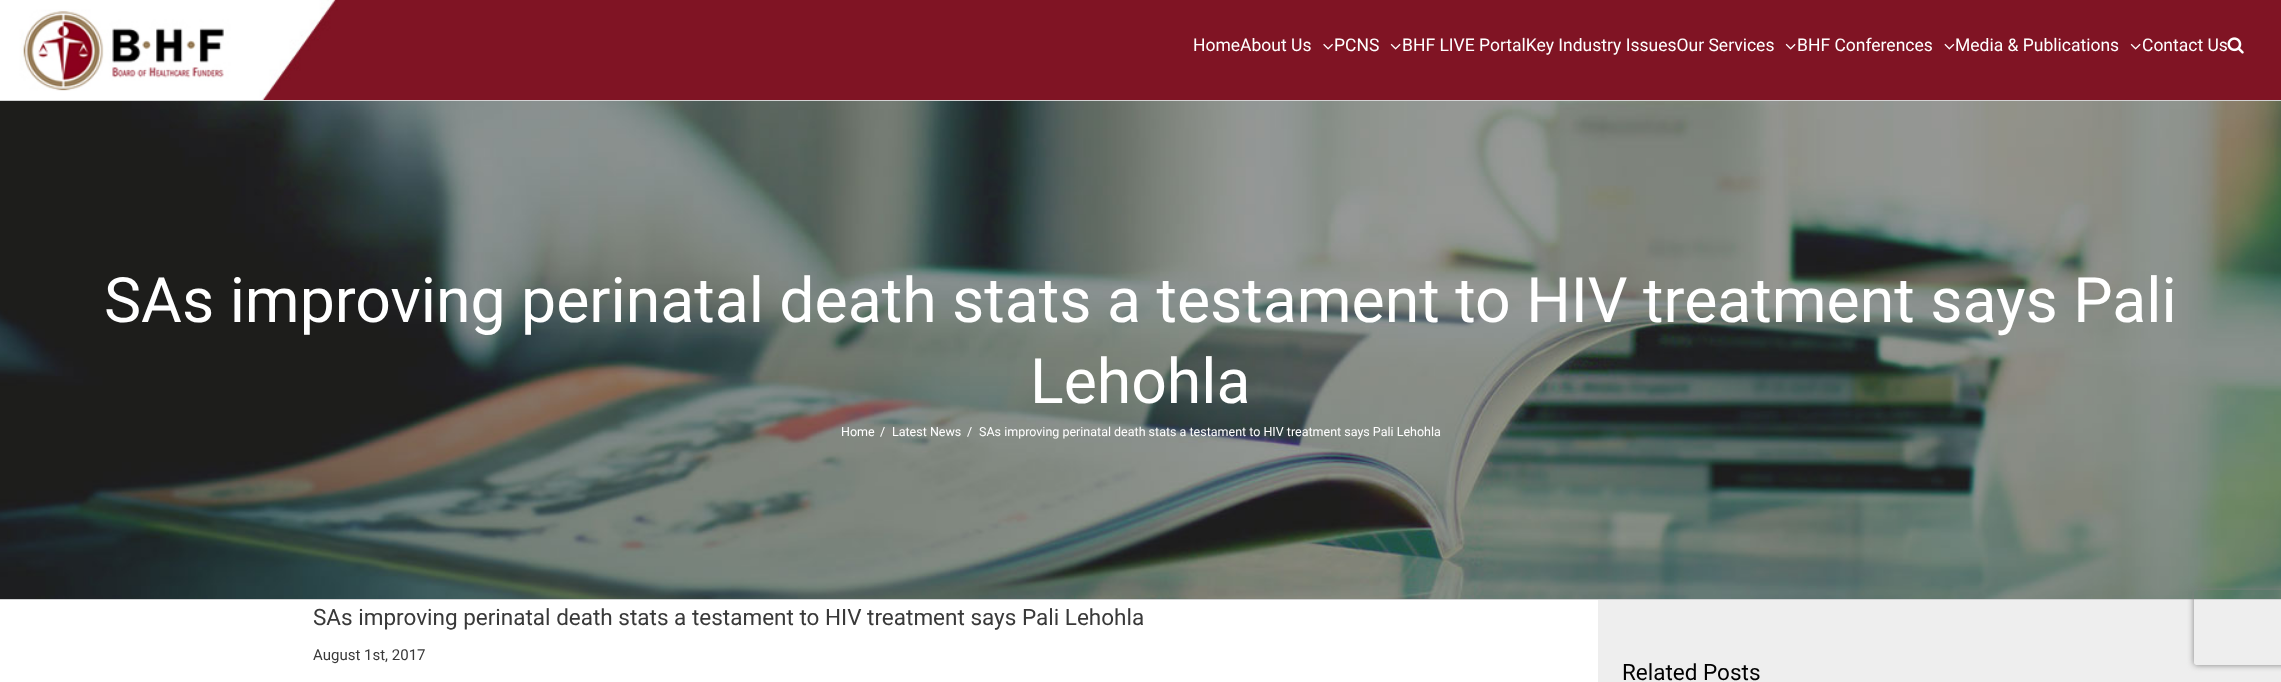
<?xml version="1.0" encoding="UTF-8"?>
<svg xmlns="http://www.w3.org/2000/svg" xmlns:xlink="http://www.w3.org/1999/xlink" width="2281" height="682">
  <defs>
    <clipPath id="clip1"><path d="M 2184 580 h 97 v 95 h -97 z m 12.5 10 h 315 c 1.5 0 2.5 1 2.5 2.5 v 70 c 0 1.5 -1 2.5 -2.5 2.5 h -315 c -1.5 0 -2.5 -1 -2.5 -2.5 v -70 c 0 -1.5 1 -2.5 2.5 -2.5 z" clip-rule="evenodd" /></clipPath>
  </defs>
  <rect width="100%" height="100%" fill="#ffffff" />
  <rect x="338" width="1943" height="100" fill="#801424" />
  <image x="0" y="0" width="338" height="100" xlink:href="image1.png" />
  <image x="1323" y="43" width="10" height="7" xlink:href="image2.png" />
  <image x="1390" y="43" width="11" height="7" xlink:href="image3.png" />
  <image x="1785" y="43" width="11" height="7" xlink:href="image3.png" />
  <image x="1944" y="43" width="11" height="7" xlink:href="image4.png" />
  <image x="2130" y="43" width="11" height="7" xlink:href="image3.png" />
  <image x="2227" y="37" width="17" height="17" xlink:href="image5.png" />
  <image x="0" y="101" width="2281" height="498" xlink:href="image6.png" />
  <rect y="100" width="2281" height="1" fill="#d2d3d4" />
  <rect y="599" width="2281" height="1" fill="#d2d3d4" />
  <rect x="1598" y="600" width="683" height="82" fill="#eeeeee" />
  <g clip-path="url(#clip1)">
    <rect x="2194" y="590" width="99" height="75" rx="2.5" fill="#808080" filter="blur(3px)" />
  </g>
  <text x="1193" y="51" style="font-family: Roboto; font-size: 17.5px; fill: #ffffff">HomeAbout Us</text>
  <text x="1334" y="51" style="font-family: Roboto; font-size: 17.5px; fill: #ffffff">PCNS</text>
  <text x="1402" y="51" style="font-family: Roboto; font-size: 17.5px; fill: #ffffff">BHF LIVE PortalKey Industry IssuesOur Services</text>
  <text x="1797" y="51" style="font-family: Roboto; font-size: 17.5px; fill: #ffffff">BHF Conferences</text>
  <text x="1955" y="51" style="font-family: Roboto; font-size: 17.5px; fill: #ffffff">Media &amp; Publications</text>
  <text x="2142" y="51" style="font-family: Roboto; font-size: 17.5px; fill: #ffffff">Contact Us</text>
  <text x="104" y="322" style="font-family: Roboto; font-size: 62.5px; fill: #ffffff">SAs improving perinatal death stats a testament to HIV treatment says Pali</text>
  <text x="1030" y="403" style="font-family: Roboto; font-size: 62.5px; fill: #ffffff">Lehohla</text>
  <text x="841" y="436" style="font-family: Roboto; font-size: 12.5px; fill: #ffffff">Home</text>
  <text x="880" y="436" style="font-family: Roboto; font-size: 12.5px; fill: #ffffff">/</text>
  <text x="892" y="436" style="font-family: Roboto; font-size: 12.5px; fill: #ffffff">Latest News</text>
  <text x="967" y="436" style="font-family: Roboto; font-size: 12.5px; fill: #ffffff">/</text>
  <text x="979" y="436" style="font-family: Roboto; font-size: 12.5px; fill: #ffffff">SAs improving perinatal death stats a testament to HIV treatment says Pali Lehohla</text>
  <text x="313" y="625" style="font-family: Roboto; font-size: 22.5px; fill: #393939">SAs improving perinatal death stats a testament to HIV treatment says Pali Lehohla</text>
  <text x="313" y="660" style="font-family: Roboto; font-size: 15px; fill: #393939">August 1st, 2017</text>
  <text x="1622" y="680" style="font-family: Roboto; font-size: 22.5px; fill: #000000">Related Posts</text>
</svg>
